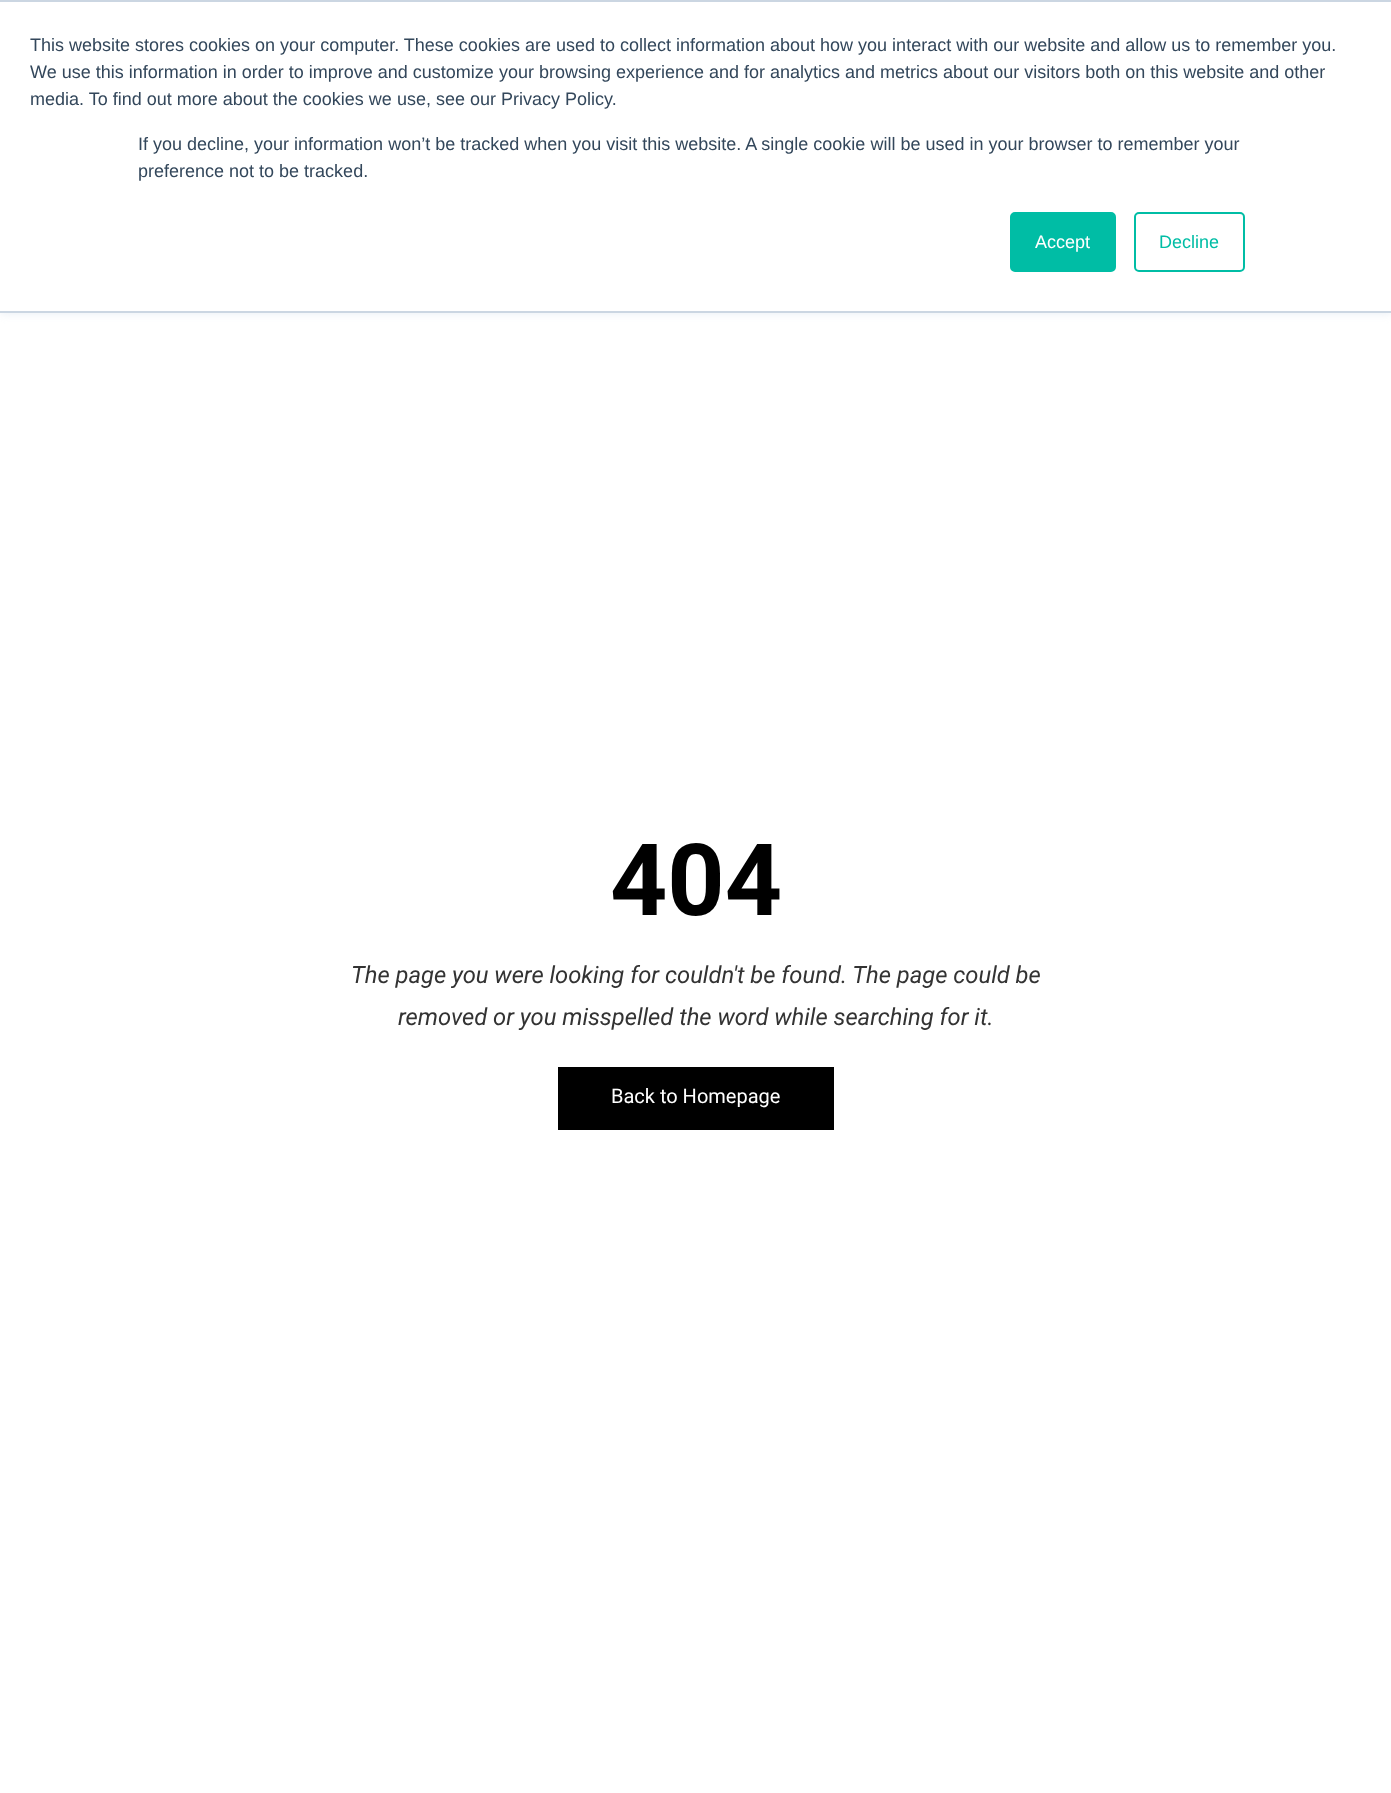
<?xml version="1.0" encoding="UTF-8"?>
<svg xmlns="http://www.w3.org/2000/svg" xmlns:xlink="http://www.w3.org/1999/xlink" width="1391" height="1793">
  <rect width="100%" height="100%" fill="#ffffff" />
  <rect y="2" width="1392" height="312" fill="#eaf0f6" filter="blur(4px)" />
  <rect y="2" width="1391" height="309" fill="#ffffff" />
  <rect width="1391" height="2" fill="#cbd6e2" />
  <rect y="311" width="1391" height="2" fill="#cbd6e2" />
  <rect x="1011" y="213" width="104" height="58" rx="4" fill="#00bda5" stroke="#00bda5" stroke-width="2" />
  <rect x="1135" y="213" width="109" height="58" rx="4" fill="none" stroke="#00bda5" stroke-width="2" />
  <rect x="558" y="1067" width="276" height="63" fill="#000000" />
  <text x="30" y="51" style="font-family: Liberation Sans; font-size: 18px; fill: #33475b">This website stores cookies on your computer. These cookies are used to collect information about how you interact with our website and allow us to remember you.</text>
  <text x="30" y="78" style="font-family: Liberation Sans; font-size: 18px; fill: #33475b">We use this information in order to improve and customize your browsing experience and for analytics and metrics about our visitors both on this website and other</text>
  <text x="30" y="105" style="font-family: Liberation Sans; font-size: 18px; fill: #33475b">media. To find out more about the cookies we use, see our Privacy Policy.</text>
  <text x="138" y="150" style="font-family: Liberation Sans; font-size: 18px; fill: #33475b">If you decline, your information won’t be tracked when you visit this website. A single cookie will be used in your browser to remember your</text>
  <text x="138" y="177" style="font-family: Liberation Sans; font-size: 18px; fill: #33475b">preference not to be tracked.</text>
  <text x="1035" y="248" style="font-family: Liberation Sans; font-size: 18px; fill: #ffffff">Accept</text>
  <text x="1159" y="248" style="font-family: Liberation Sans; font-size: 18px; fill: #00bda5">Decline</text>
  <text x="610" y="915" style="font-family: Roboto; font-size: 100px; font-weight: bold; fill: #000000">404</text>
  <text x="351" y="983" style="font-family: Roboto; font-size: 23.75px; font-style: italic; fill: #333333">The page you were looking for couldn't be found. The page could be</text>
  <text x="398" y="1025" style="font-family: Roboto; font-size: 23.75px; font-style: italic; fill: #333333">removed or you misspelled the word while searching for it.</text>
  <text x="611" y="1103" style="font-family: Roboto; font-size: 20px; fill: #ffffff">Back to Homepage</text>
</svg>
